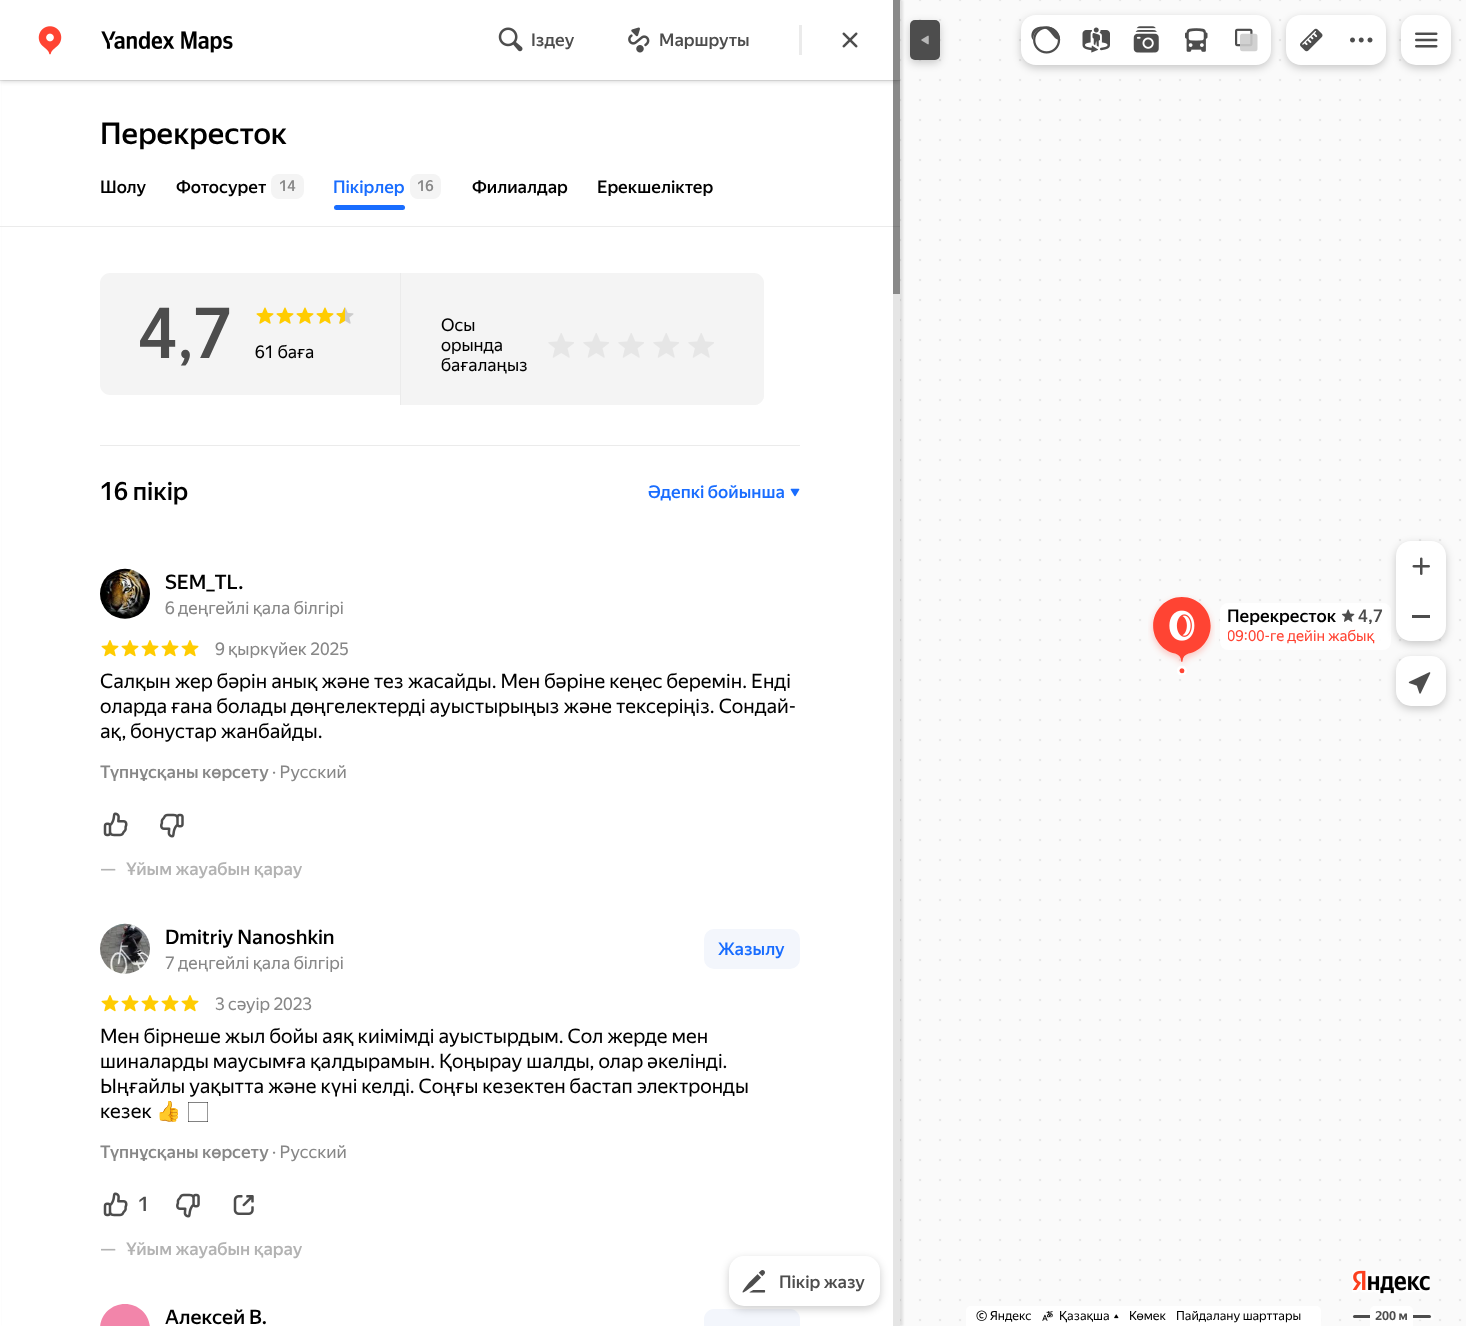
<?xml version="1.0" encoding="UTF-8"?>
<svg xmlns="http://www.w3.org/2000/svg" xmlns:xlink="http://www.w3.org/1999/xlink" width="1466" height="1326">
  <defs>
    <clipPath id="clip1"><rect x="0" y="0" width="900" height="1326" /></clipPath>
    <clipPath id="clip2"><rect x="1228" y="628" width="156" height="17" /></clipPath>
  </defs>
  <rect width="100%" height="100%" fill="#ffffff" />
  <image x="900" y="0" width="566" height="1326" xlink:href="image1.png" />
  <rect x="3" width="900" height="1326" fill="#000000" fill-opacity="0.1" filter="blur(1px)" />
  <rect x="2" y="81" width="898" height="1245" fill="#ffffff" />
  <rect y="80" width="900" height="1" fill="#ebebeb" />
  <g clip-path="url(#clip1)">
    <rect y="76" width="900" height="5" fill="#000000" fill-opacity="0.2" filter="blur(2.5px)" />
  </g>
  <rect x="910" y="23" width="30" height="40" rx="5" fill="#000000" fill-opacity="0.2" filter="blur(4px)" />
  <rect width="900" height="80" fill="#ffffff" />
  <image x="38" y="26" width="24" height="29" xlink:href="image2.png" />
  <image x="101" y="31" width="132" height="22" xlink:href="image3.png" />
  <image x="498" y="27" width="25" height="25" xlink:href="image4.png" />
  <image x="628" y="27" width="22" height="26" xlink:href="image5.png" />
  <rect x="799" y="25" width="3" height="30" fill="#ebebeb" />
  <image x="842" y="32" width="16" height="16" xlink:href="image6.png" />
  <rect x="271" y="174" width="33" height="25" rx="8" fill="#f4f4f4" />
  <rect x="410" y="174" width="31" height="25" rx="8" fill="#f4f4f4" />
  <rect x="334" y="205" width="71" height="5" rx="2.5" fill="#196dff" />
  <rect y="226" width="900" height="1" fill="#ebebeb" />
  <path d="M 110 273 h 290 v 122 h -290 c -5.5 0 -10 -4.5 -10 -10 v -102 c 0 -5.5 4.5 -10 10 -10 z" fill="#f4f4f4" />
  <image x="256" y="307" width="18" height="17" xlink:href="image7.png" />
  <image x="276" y="307" width="18" height="17" xlink:href="image7.png" />
  <image x="296" y="307" width="18" height="17" xlink:href="image7.png" />
  <image x="316" y="307" width="18" height="17" xlink:href="image7.png" />
  <image x="336" y="307" width="18" height="17" xlink:href="image8.png" />
  <path d="M 400 273 h 354 c 5.5 0 10 4.5 10 10 v 112 c 0 5.5 -4.5 10 -10 10 h -354 z" fill="#f4f4f4" />
  <rect x="400" y="273" width="1" height="132" fill="#ebebeb" />
  <path d="M 401 285 h 363 v 110 c 0 5.5 -4.5 10 -10 10 h -343 c -5.5 0 -10 -4.5 -10 -10 z" fill="#f4f4f4" />
  <image x="548" y="333" width="26" height="25" xlink:href="image9.png" />
  <image x="583" y="333" width="26" height="25" xlink:href="image9.png" />
  <image x="618" y="333" width="26" height="25" xlink:href="image9.png" />
  <image x="653" y="333" width="26" height="25" xlink:href="image9.png" />
  <image x="688" y="333" width="26" height="25" xlink:href="image9.png" />
  <rect x="100" y="445" width="700" height="1" fill="#ebebeb" />
  <image x="790" y="488" width="10" height="9" xlink:href="image10.png" />
  <image x="100" y="568" width="50" height="51" xlink:href="image11.png" />
  <image x="101" y="640" width="18" height="17" xlink:href="image12.png" />
  <image x="121" y="640" width="18" height="17" xlink:href="image12.png" />
  <image x="141" y="640" width="18" height="17" xlink:href="image12.png" />
  <image x="161" y="640" width="18" height="17" xlink:href="image12.png" />
  <image x="181" y="640" width="18" height="17" xlink:href="image12.png" />
  <image x="103" y="812" width="25" height="25" xlink:href="image13.png" />
  <image x="160" y="813" width="24" height="25" xlink:href="image14.png" />
  <image x="100" y="923" width="50" height="51" xlink:href="image15.png" />
  <rect x="704" y="929" width="96" height="40" rx="10" fill="#f3f6fc" />
  <image x="101" y="995" width="18" height="17" xlink:href="image12.png" />
  <image x="121" y="995" width="18" height="17" xlink:href="image12.png" />
  <image x="141" y="995" width="18" height="17" xlink:href="image12.png" />
  <image x="161" y="995" width="18" height="17" xlink:href="image12.png" />
  <image x="181" y="995" width="18" height="17" xlink:href="image12.png" />
  <image x="103" y="1192" width="25" height="25" xlink:href="image13.png" />
  <image x="176" y="1193" width="24" height="25" xlink:href="image16.png" />
  <image x="233" y="1195" width="21" height="20" xlink:href="image17.png" />
  <path d="M 125 1304 c 14 0 25 11 25 25 v -3 h -50 v 3 c 0 -14 11 -25 25 -25 z" fill="#f285aa" />
  <path d="M 714 1309 h 76 c 5.5 0 10 4.5 10 10 v 7 h -96 v -7 c 0 -5.5 4.5 -10 10 -10 z" fill="#f3f6fc" />
  <rect x="729" y="1259" width="151" height="50" rx="15" fill="#000000" fill-opacity="0.2" filter="blur(4px)" />
  <rect x="729" y="1256" width="151" height="50" rx="15" fill="#ffffff" />
  <image x="742" y="1270" width="24" height="23" xlink:href="image18.png" />
  <rect x="893" width="7" height="1326" fill="#000000" fill-opacity="0.1" />
  <rect x="893" width="7" height="294" fill="#000000" fill-opacity="0.4" />
  <rect x="910" y="20" width="30" height="40" rx="5" fill="#4d4d4d" />
  <image x="921" y="35" width="8" height="10" xlink:href="image19.png" />
  <rect x="1021" y="18" width="250" height="50" rx="15" fill="#000000" fill-opacity="0.2" filter="blur(4px)" />
  <path d="M 1036 15 h 35 v 50 h -35 c -8.5 0 -15 -6.5 -15 -15 v -20 c 0 -8.5 6.5 -15 15 -15 z" fill="#ffffff" />
  <image x="1031" y="26" width="30" height="28" xlink:href="image20.png" />
  <rect x="1071" y="15" width="150" height="50" fill="#ffffff" />
  <image x="1082" y="27" width="28" height="26" xlink:href="image21.png" />
  <path d="M 1221 15 h 35 c 8.5 0 15 6.5 15 15 v 20 c 0 8.5 -6.5 15 -15 15 h -35 z" fill="#ffffff" />
  <image x="1235" y="28" width="23" height="24" xlink:href="image22.png" />
  <image x="1133" y="26" width="26" height="27" xlink:href="image23.png" />
  <image x="1185" y="28" width="23" height="24" xlink:href="image24.png" />
  <rect x="1286" y="18" width="100" height="50" rx="15" fill="#000000" fill-opacity="0.2" filter="blur(4px)" />
  <path d="M 1301 15 h 35 v 50 h -35 c -8.5 0 -15 -6.5 -15 -15 v -20 c 0 -8.5 6.5 -15 15 -15 z" fill="#ffffff" />
  <image x="1300" y="28" width="23" height="24" xlink:href="image25.png" />
  <path d="M 1336 15 h 35 c 8.5 0 15 6.5 15 15 v 20 c 0 8.5 -6.5 15 -15 15 h -35 z" fill="#ffffff" />
  <image x="1350" y="37" width="23" height="6" xlink:href="image26.png" />
  <rect x="1401" y="18" width="50" height="50" rx="15" fill="#000000" fill-opacity="0.2" filter="blur(4px)" />
  <rect x="1401" y="15" width="50" height="50" rx="15" fill="#ffffff" />
  <image x="1415" y="32" width="23" height="16" xlink:href="image27.png" />
  <rect x="1220" y="603" width="171" height="47" rx="8" fill="#ffffff" fill-opacity="0.9" />
  <rect x="1396" y="544" width="50" height="100" rx="15" fill="#000000" fill-opacity="0.2" filter="blur(4px)" />
  <path d="M 1411 541 h 20 c 8.5 0 15 6.5 15 15 v 35 h -50 v -35 c 0 -8.5 6.5 -15 15 -15 z" fill="#ffffff" />
  <image x="1412" y="557" width="18" height="18" xlink:href="image28.png" />
  <path d="M 1396 591 h 50 v 35 c 0 8.5 -6.5 15 -15 15 h -20 c -8.5 0 -15 -6.5 -15 -15 z" fill="#ffffff" />
  <rect x="1412" y="615" width="18" height="3" fill="#4d4d4d" />
  <rect x="1396" y="659" width="50" height="50" rx="15" fill="#000000" fill-opacity="0.2" filter="blur(4px)" />
  <rect x="1396" y="656" width="50" height="50" rx="15" fill="#ffffff" />
  <image x="1408" y="672" width="23" height="22" xlink:href="image29.png" />
  <image x="1352" y="1270" width="78" height="24" xlink:href="image30.png" />
  <path d="M 971 1306 h 345 c 3 0 5 2 5 5 v 15 h -355 v -15 c 0 -3 2 -5 5 -5 z" fill="#ffffff" />
  <image x="1042" y="1311" width="11" height="10" xlink:href="image31.png" />
  <image x="1114" y="1314" width="5" height="5" xlink:href="image32.png" />
  <rect x="1350" y="1313" width="84" height="7" rx="3.5" fill="#ffffff" fill-opacity="0.6" />
  <rect x="1353" y="1315" width="78" height="3" rx="1.5" fill="#4d4d4d" />
  <path d="M 1375 1306 h 33 c 3 0 5 2 5 5 v 15 h -43 v -15 c 0 -3 2 -5 5 -5 z" fill="#ffffff" />
  <image x="1148" y="595" width="67" height="80" xlink:href="image33.png" />
  <image x="1169" y="610" width="26" height="31" xlink:href="image34.png" />
  <image x="1341" y="609" width="14" height="13" xlink:href="image35.png" />
  <text x="531" y="46" style="font-family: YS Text; font-size: 17.5px; font-weight: 500; fill: #4d4d4d">Іздеу</text>
  <text x="659" y="46" style="font-family: YS Text; font-size: 17.5px; font-weight: 500; fill: #4d4d4d">Маршруты</text>
  <text x="100" y="144" style="font-family: YS Text; font-size: 30px; font-weight: 500; fill: #000000">Перекресток</text>
  <text x="100" y="193" style="font-family: YS Text; font-size: 17.5px; font-weight: 500; fill: #000000">Шолу</text>
  <text x="176" y="193" style="font-family: YS Text; font-size: 17.5px; font-weight: 500; fill: #000000">Фотосурет</text>
  <text x="279" y="191" style="font-family: YS Text; font-size: 15px; font-weight: 500; fill: #878787">14</text>
  <text x="333" y="193" style="font-family: YS Text; font-size: 17.5px; font-weight: 500; fill: #196dff">Пікірлер</text>
  <text x="417" y="191" style="font-family: YS Text; font-size: 15px; font-weight: 500; fill: #878787">16</text>
  <text x="472" y="193" style="font-family: YS Text; font-size: 17.5px; font-weight: 500; fill: #000000">Филиалдар</text>
  <text x="597" y="193" style="font-family: YS Text; font-size: 17.5px; font-weight: 500; fill: #000000">Ерекшеліктер</text>
  <text x="138" y="358" style="font-family: YS Text; font-size: 70px; font-weight: 500; fill: #4d4d4d">4</text>
  <text x="177" y="358" style="font-family: YS Text; font-size: 70px; fill: #4d4d4d">,</text>
  <text x="193" y="358" style="font-family: YS Text; font-size: 70px; font-weight: 500; fill: #4d4d4d">7</text>
  <text x="255" y="358" style="font-family: YS Text; font-size: 17.5px; fill: #000000">61 баға</text>
  <text x="441" y="331" style="font-family: YS Text; font-size: 17.5px; fill: #000000">Осы</text>
  <text x="441" y="351" style="font-family: YS Text; font-size: 17.5px; fill: #000000">орында</text>
  <text x="441" y="371" style="font-family: YS Text; font-size: 17.5px; fill: #000000">бағалаңыз</text>
  <text x="100" y="500" style="font-family: YS Text; font-size: 25px; font-weight: 500; fill: #000000">16 пікір</text>
  <text x="648" y="498" style="font-family: YS Text; font-size: 17.5px; font-weight: 500; fill: #196dff">Әдепкі бойынша</text>
  <text x="165" y="589" style="font-family: YS Text; font-size: 20px; font-weight: 500; fill: #000000">SEM_TL.</text>
  <text x="165" y="614" style="font-family: YS Text; font-size: 17.5px; fill: #878787">6 деңгейлі қала білгірі</text>
  <text x="215" y="655" style="font-family: YS Text; font-size: 17.5px; fill: #878787">9 қыркүйек 2025</text>
  <text x="100" y="688" style="font-family: YS Text; font-size: 20px; fill: #000000">Салқын жер бәрін анық және тез жасайды. Мен бәріне кеңес беремін. Енді</text>
  <text x="100" y="713" style="font-family: YS Text; font-size: 20px; fill: #000000">оларда ғана болады дөңгелектерді ауыстырыңыз және тексеріңіз. Сондай-</text>
  <text x="100" y="738" style="font-family: YS Text; font-size: 20px; fill: #000000">ақ, бонустар жанбайды.</text>
  <text x="100" y="778" style="font-family: YS Text; font-size: 17.5px; font-weight: 500; fill: #878787">Түпнұсқаны көрсету</text>
  <text x="272" y="778" style="font-family: YS Text; font-size: 17.5px; fill: #878787">· Русский</text>
  <text x="100" y="875" style="font-family: YS Text; font-size: 17.5px; font-weight: 500; fill: #b3b3b3">—</text>
  <text x="126" y="875" style="font-family: YS Text; font-size: 17.5px; font-weight: 500; fill: #b3b3b3">Ұйым жауабын қарау</text>
  <text x="165" y="944" style="font-family: YS Text; font-size: 20px; font-weight: 500; fill: #000000">Dmitriy Nanoshkin</text>
  <text x="165" y="969" style="font-family: YS Text; font-size: 17.5px; fill: #878787">7 деңгейлі қала білгірі</text>
  <text x="718" y="955" style="font-family: YS Text; font-size: 17.5px; font-weight: 500; fill: #196dff">Жазылу</text>
  <text x="215" y="1010" style="font-family: YS Text; font-size: 17.5px; fill: #878787">3 сәуір 2023</text>
  <text x="100" y="1043" style="font-family: YS Text; font-size: 20px; fill: #000000">Мен бірнеше жыл бойы аяқ киімімді ауыстырдым. Сол жерде мен</text>
  <text x="100" y="1068" style="font-family: YS Text; font-size: 20px; fill: #000000">шиналарды маусымға қалдырамын. Қоңырау шалды, олар әкелінді.</text>
  <text x="100" y="1093" style="font-family: YS Text; font-size: 20px; fill: #000000">Ыңғайлы уақытта және күні келді. Соңғы кезектен бастап электронды</text>
  <text x="100" y="1118" style="font-family: YS Text; font-size: 20px; fill: #000000">кезек</text>
  <text x="156" y="1118" style="font-family: Noto Color Emoji; font-size: 20px; fill: #000000">👍</text>
  <text x="188" y="1118" style="font-family: YS Text; font-size: 20px; fill: #000000">🏻</text>
  <text x="100" y="1158" style="font-family: YS Text; font-size: 17.5px; font-weight: 500; fill: #878787">Түпнұсқаны көрсету</text>
  <text x="272" y="1158" style="font-family: YS Text; font-size: 17.5px; fill: #878787">· Русский</text>
  <text x="138" y="1211" style="font-family: YS Text; font-size: 20px; font-weight: 500; fill: #4d4d4d">1</text>
  <text x="100" y="1255" style="font-family: YS Text; font-size: 17.5px; font-weight: 500; fill: #b3b3b3">—</text>
  <text x="126" y="1255" style="font-family: YS Text; font-size: 17.5px; font-weight: 500; fill: #b3b3b3">Ұйым жауабын қарау</text>
  <text x="165" y="1324" style="font-family: YS Text; font-size: 20px; font-weight: 500; fill: #000000">Алексей В.</text>
  <text x="779" y="1288" style="font-family: YS Text; font-size: 17.5px; font-weight: 500; fill: #4d4d4d">Пікір жазу</text>
  <text x="976" y="1320" style="font-family: YS Text; font-size: 12.5px; fill: #000000">© Яндекс</text>
  <text x="1059" y="1320" style="font-family: YS Text; font-size: 12.5px; fill: #000000">Қазақша</text>
  <text x="1129" y="1320" style="font-family: YS Text; font-size: 12.5px; fill: #000000">Көмек</text>
  <text x="1176" y="1320" style="font-family: YS Text; font-size: 12.5px; fill: #000000">Пайдалану шарттары</text>
  <text x="1375" y="1320" style="font-family: YS Text; font-size: 12.5px; font-weight: bold; fill: #4d4d4d">200 м</text>
  <text x="1227" y="622" style="font-family: YS Text; font-size: 17.5px; font-weight: 500; fill: #000000">Перекресток</text>
  <text x="1358" y="622" style="font-family: YS Text; font-size: 17.5px; font-weight: 500; fill: #4d4d4d">4,7</text>
  <g clip-path="url(#clip2)">
    <text x="1227" y="641" style="font-family: YS Text; font-size: 15px; fill: #ff4433">09:00-ге дейін жабық</text>
  </g>
</svg>
